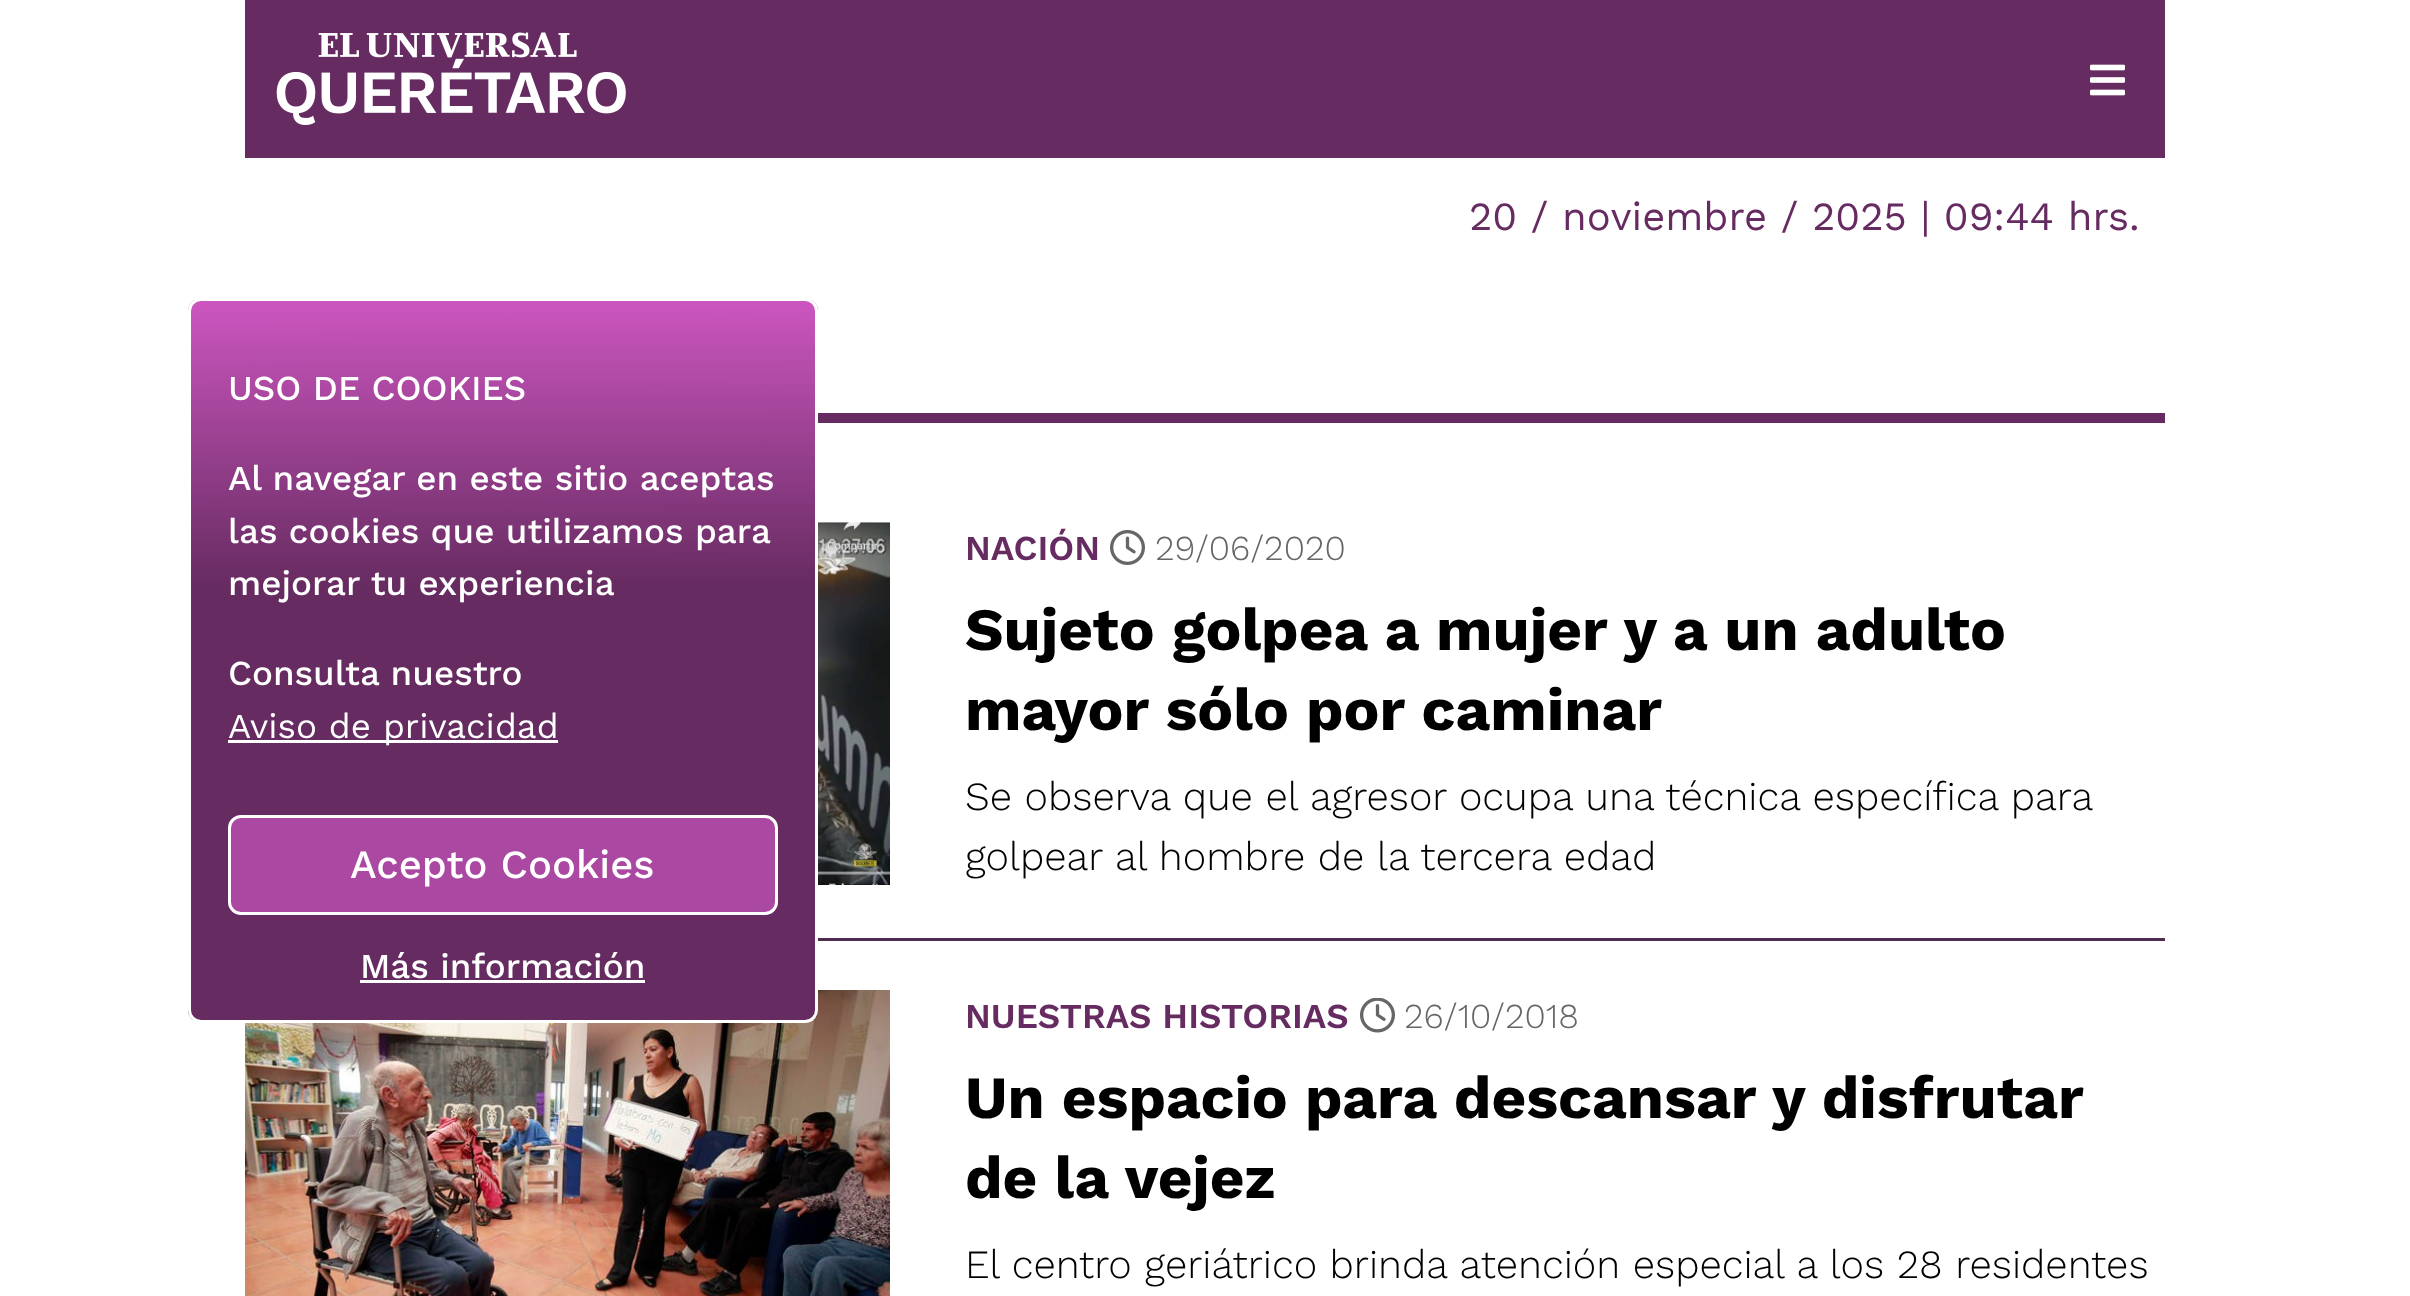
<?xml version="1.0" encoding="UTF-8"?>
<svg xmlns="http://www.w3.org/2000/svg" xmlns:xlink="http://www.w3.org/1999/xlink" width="2410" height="1296">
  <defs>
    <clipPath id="clip1"><rect x="188" y="298" width="630" height="725" rx="13" /></clipPath>
    <linearGradient id="g1" gradientUnits="userSpaceOnUse" x1="502" y1="300" x2="503" y2="1020"><stop offset="0" stop-color="#cc56c0" /><stop offset="0.4" stop-color="#662b60" /></linearGradient>
  </defs>
  <rect width="100%" height="100%" fill="#ffffff" />
  <image x="245" y="990" width="645" height="306" xlink:href="image5.png" />
  <g clip-path="url(#clip1)">
    <rect x="188" y="300" width="630" height="720" fill="url(#g1)" />
  </g>
  <rect x="189.5" y="299.5" width="627" height="722" rx="11.5" fill="none" stroke="#ffffff" stroke-width="3" />
  <rect x="228" y="740" width="330" height="3" fill="#ffffff" />
  <rect x="229.5" y="816.5" width="547" height="97" rx="11.5" fill="#ab48a1" stroke="#ffffff" stroke-width="3" />
  <rect x="360" y="980" width="285" height="3" fill="#ffffff" />
  <rect x="245" width="1920" height="158" fill="#662b60" />
  <image x="276" y="32" width="350" height="93" xlink:href="image1.png" />
  <image x="2090" y="64" width="35" height="32" xlink:href="image2.png" />
  <rect x="818" y="413" width="1347" height="10" fill="#662b60" />
  <rect x="818" y="938" width="1347" height="3" fill="#4d2c4f" />
  <image x="818" y="522" width="72" height="363" xlink:href="image3.png" />
  <image x="1110" y="530" width="35" height="35" xlink:href="image4.png" />
  <image x="1360" y="998" width="35" height="35" xlink:href="image6.png" />
  <text x="228" y="400" style="font-family: Work Sans; font-size: 35px; font-weight: 500; fill: #ffffff">USO DE COOKIES</text>
  <text x="228" y="490" style="font-family: Work Sans; font-size: 35px; font-weight: 500; fill: #ffffff">Al navegar en este sitio aceptas</text>
  <text x="228" y="543" style="font-family: Work Sans; font-size: 35px; font-weight: 500; fill: #ffffff">las cookies que utilizamos para</text>
  <text x="228" y="595" style="font-family: Work Sans; font-size: 35px; font-weight: 500; fill: #ffffff">mejorar tu experiencia</text>
  <text x="228" y="685" style="font-family: Work Sans; font-size: 35px; font-weight: 500; fill: #ffffff">Consulta nuestro</text>
  <text x="228" y="738" style="font-family: Work Sans; font-size: 35px; fill: #ffffff">Aviso de privacidad</text>
  <text x="350" y="878" style="font-family: Work Sans; font-size: 40px; font-weight: 500; fill: #ffffff">Acepto Cookies</text>
  <text x="360" y="978" style="font-family: Work Sans; font-size: 35px; font-weight: 500; fill: #ffffff">Más información</text>
  <text x="1469" y="230" style="font-family: Work Sans; font-size: 40px; fill: #662b60">20 / noviembre / 2025 | 09:44 hrs.</text>
  <text x="965" y="560" style="font-family: Work Sans; font-size: 35px; font-weight: 600; fill: #662b60">NACIÓN</text>
  <text x="1155" y="560" style="font-family: Work Sans; font-size: 35px; font-weight: 300; fill: #666666">29/06/2020</text>
  <text x="965" y="650" style="font-family: Work Sans; font-size: 60px; font-weight: bold; fill: #000000">Sujeto golpea a mujer y a un adulto</text>
  <text x="965" y="730" style="font-family: Work Sans; font-size: 60px; font-weight: bold; fill: #000000">mayor sólo por caminar</text>
  <text x="965" y="810" style="font-family: Work Sans; font-size: 40px; font-weight: 300; fill: #000000">Se observa que el agresor ocupa una técnica específica para</text>
  <text x="965" y="870" style="font-family: Work Sans; font-size: 40px; font-weight: 300; fill: #000000">golpear al hombre de la tercera edad</text>
  <text x="965" y="1028" style="font-family: Work Sans; font-size: 35px; font-weight: 600; fill: #662b60">NUESTRAS HISTORIAS</text>
  <text x="1404" y="1028" style="font-family: Work Sans; font-size: 35px; font-weight: 300; fill: #666666">26/10/2018</text>
  <text x="965" y="1118" style="font-family: Work Sans; font-size: 60px; font-weight: bold; fill: #000000">Un espacio para descansar y disfrutar</text>
  <text x="965" y="1198" style="font-family: Work Sans; font-size: 60px; font-weight: bold; fill: #000000">de la vejez</text>
  <text x="965" y="1278" style="font-family: Work Sans; font-size: 40px; font-weight: 300; fill: #000000">El centro geriátrico brinda atención especial a los 28 residentes</text>
</svg>
